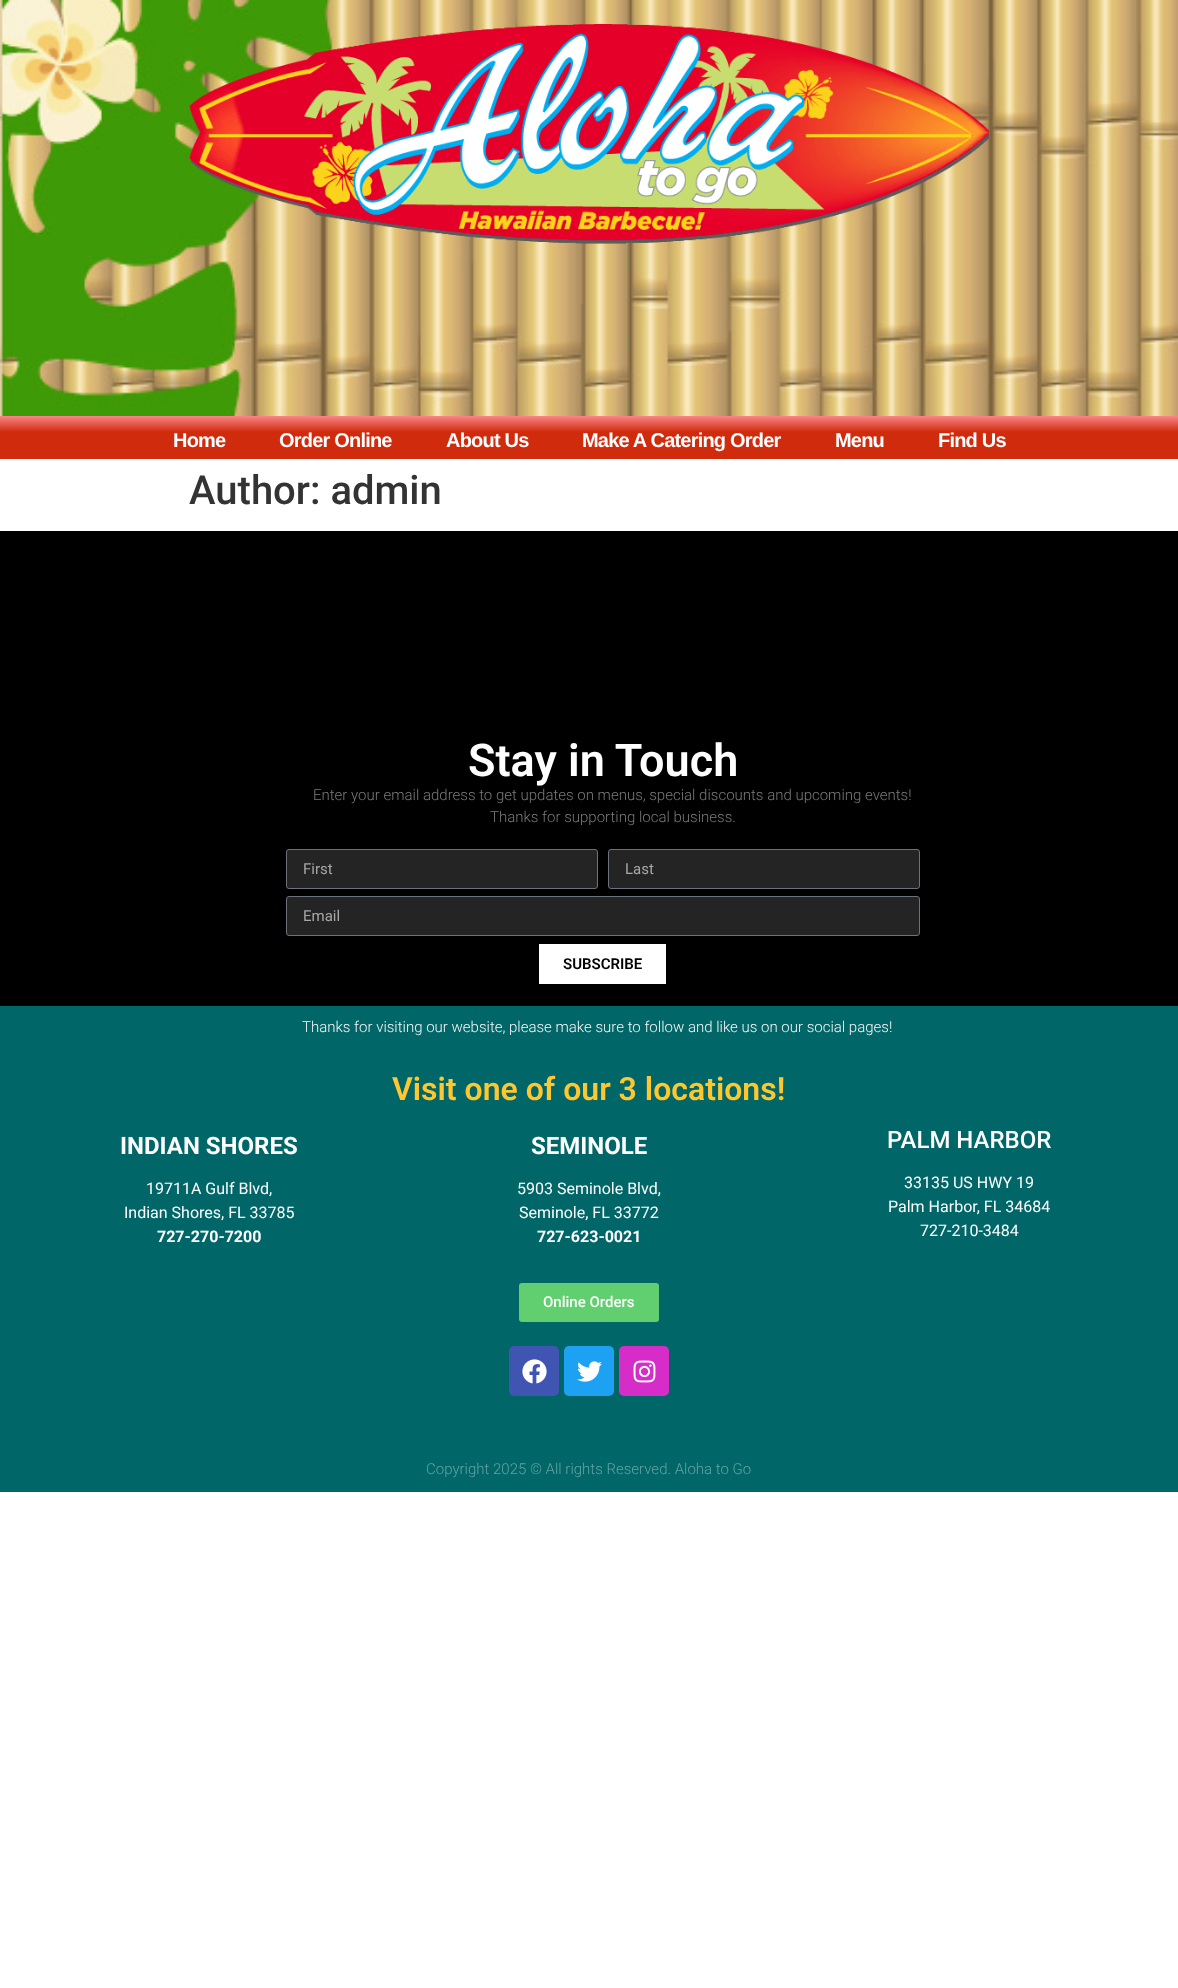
<?xml version="1.0" encoding="UTF-8"?>
<svg xmlns="http://www.w3.org/2000/svg" xmlns:xlink="http://www.w3.org/1999/xlink" width="1178" height="1988">
  <defs>
    <linearGradient id="g1" gradientUnits="userSpaceOnUse" x1="589" y1="416" x2="589" y2="459"><stop offset="0" stop-color="#f98585" /><stop offset="0.37" stop-color="#d12b0e" /></linearGradient>
  </defs>
  <rect width="100%" height="100%" fill="#ffffff" />
  <image x="0" y="0" width="1178" height="416" xlink:href="image1.png" />
  <image x="189" y="24" width="800" height="220" xlink:href="image2.png" />
  <rect y="416" width="1178" height="43" fill="url(#g1)" />
  <rect y="531" width="1178" height="475" fill="#000000" />
  <rect x="286.5" y="849.5" width="311" height="39" rx="2.5" fill="#242424" stroke="#69727d" />
  <rect x="608.5" y="849.5" width="311" height="39" rx="2.5" fill="#242424" stroke="#69727d" />
  <rect x="286.5" y="896.5" width="633" height="39" rx="2.5" fill="#242424" stroke="#69727d" />
  <rect x="539" y="944" width="127" height="40" fill="#ffffff" />
  <rect y="1006" width="1178" height="486" fill="#006668" />
  <rect x="519" y="1283" width="140" height="39" rx="3" fill="#61ce70" />
  <rect x="509" y="1346" width="50" height="50" rx="5" fill="#4054b2" />
  <image x="522" y="1359" width="25" height="25" xlink:href="image3.png" />
  <rect x="564" y="1346" width="50" height="50" rx="5" fill="#1da1f2" />
  <image x="577" y="1361" width="25" height="21" xlink:href="image4.png" />
  <rect x="619" y="1346" width="50" height="50" rx="5" fill="#d62cc8" />
  <image x="633" y="1360" width="23" height="23" xlink:href="image5.png" />
  <text x="173" y="447" style="font-family: Liberation Sans; font-size: 20px; font-weight: bold; letter-spacing: -0.8px; fill: #ffffff">Home</text>
  <text x="279" y="447" style="font-family: Liberation Sans; font-size: 20px; font-weight: bold; letter-spacing: -0.8px; fill: #ffffff">Order Online</text>
  <text x="446" y="447" style="font-family: Liberation Sans; font-size: 20px; font-weight: bold; letter-spacing: -0.8px; fill: #ffffff">About Us</text>
  <text x="582" y="447" style="font-family: Liberation Sans; font-size: 20px; font-weight: bold; letter-spacing: -0.8px; fill: #ffffff">Make A Catering Order</text>
  <text x="835" y="447" style="font-family: Liberation Sans; font-size: 20px; font-weight: bold; letter-spacing: -0.8px; fill: #ffffff">Menu</text>
  <text x="938" y="447" style="font-family: Liberation Sans; font-size: 20px; font-weight: bold; letter-spacing: -0.8px; fill: #ffffff">Find Us</text>
  <text x="189" y="504" style="font-family: Roboto; font-size: 40px; font-weight: 500; fill: #333333">Author: admin</text>
  <text x="468" y="776" style="font-family: Roboto; font-size: 45px; font-weight: 600; fill: #ffffff">Stay in Touch</text>
  <text x="313" y="800" style="font-family: Roboto; font-size: 15px; font-weight: 300; fill: #7a7a7a">Enter your email address to get updates on menus, special discounts and upcoming events!</text>
  <text x="490" y="822" style="font-family: Roboto; font-size: 15px; font-weight: 300; fill: #7a7a7a">Thanks for supporting local business.</text>
  <text x="303" y="874" style="font-family: Roboto; font-size: 15px; fill: #a7a7a7">First</text>
  <text x="625" y="874" style="font-family: Roboto; font-size: 15px; fill: #a7a7a7">Last</text>
  <text x="303" y="921" style="font-family: Roboto; font-size: 15px; fill: #a7a7a7">Email</text>
  <text x="563" y="969" style="font-family: Roboto; font-size: 15px; font-weight: 600; fill: #000000">SUBSCRIBE</text>
  <text x="302" y="1032" style="font-family: Roboto; font-size: 15px; font-weight: 300; fill: #f7f7f7">Thanks for visiting our website, please make sure to follow and like us on our social pages!</text>
  <text x="392" y="1100" style="font-family: Roboto; font-size: 32px; font-weight: 600; fill: #ffc72f">Visit one of our 3 locations!</text>
  <text x="120" y="1154" style="font-family: Roboto; font-size: 24px; font-weight: bold; fill: #ffffff">INDIAN SHORES</text>
  <text x="146" y="1194" style="font-family: Roboto; font-size: 16px; fill: #ffffff">19711A Gulf Blvd,</text>
  <text x="124" y="1218" style="font-family: Roboto; font-size: 16px; fill: #ffffff">Indian Shores, FL 33785</text>
  <text x="157" y="1242" style="font-family: Roboto; font-size: 16px; font-weight: bold; fill: #ffffff">727-270-7200</text>
  <text x="531" y="1154" style="font-family: Roboto; font-size: 24px; font-weight: bold; fill: #ffffff">SEMINOLE</text>
  <text x="517" y="1194" style="font-family: Roboto; font-size: 16px; fill: #ffffff">5903 Seminole Blvd,</text>
  <text x="519" y="1218" style="font-family: Roboto; font-size: 16px; fill: #ffffff">Seminole, FL 33772</text>
  <text x="537" y="1242" style="font-family: Roboto; font-size: 16px; font-weight: bold; fill: #ffffff">727-623-0021</text>
  <text x="543" y="1307" style="font-family: Roboto; font-size: 15px; font-weight: 500; fill: #ffffff">Online Orders</text>
  <text x="887" y="1148" style="font-family: Roboto; font-size: 24px; font-weight: 500; fill: #ffffff">PALM HARBOR</text>
  <text x="904" y="1188" style="font-family: Roboto; font-size: 16px; fill: #ffffff">33135 US HWY 19</text>
  <text x="888" y="1212" style="font-family: Roboto; font-size: 16px; fill: #ffffff">Palm Harbor, FL 34684</text>
  <text x="920" y="1236" style="font-family: Roboto; font-size: 16px; fill: #ffffff">727-210-3484</text>
  <text x="426" y="1474" style="font-family: Roboto; font-size: 15px; font-weight: 300; fill: #63a2a3">Copyright 2025 © All rights Reserved. Aloha to Go</text>
</svg>
